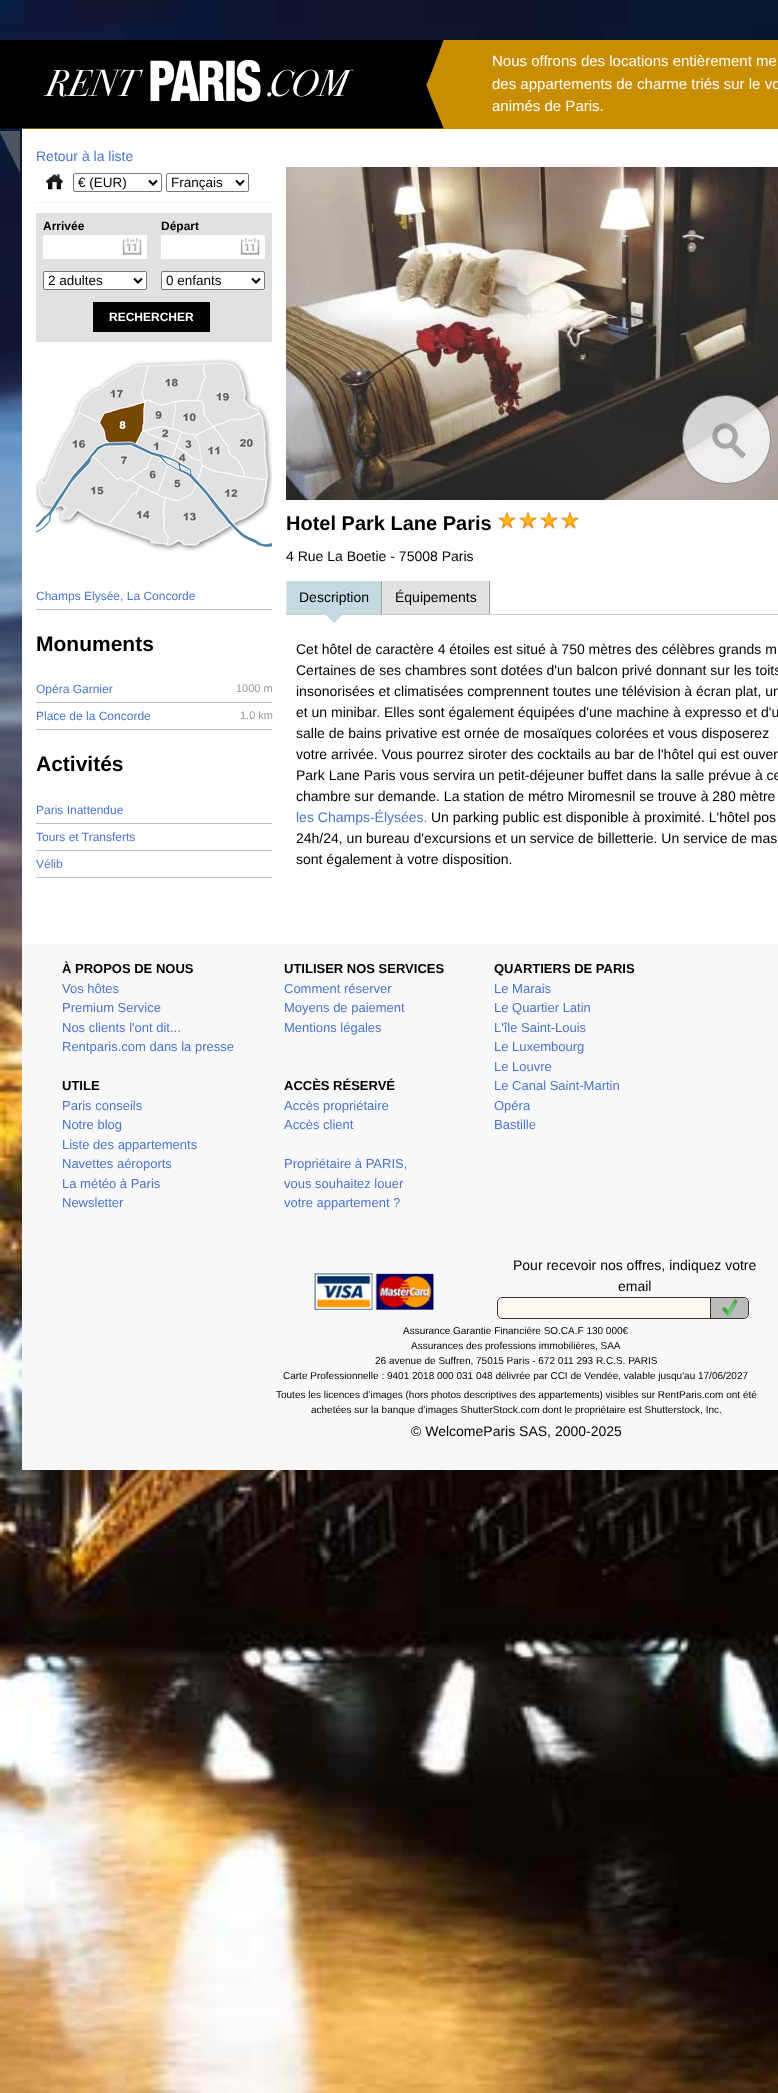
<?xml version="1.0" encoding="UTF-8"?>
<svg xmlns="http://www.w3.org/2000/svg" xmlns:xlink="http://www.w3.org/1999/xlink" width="778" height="2093">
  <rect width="100%" height="100%" fill="#ffffff" />
  <image x="0" y="0" width="778" height="2093" xlink:href="image1.png" />
  <rect x="22" y="40" width="756" height="89" fill="#c88e00" />
  <image x="0" y="40" width="444" height="132" xlink:href="image2.png" />
  <image x="43" y="60" width="311" height="42" xlink:href="image3.png" />
  <rect x="22" y="129" width="756" height="815" fill="#ffffff" />
  <rect x="36" y="202" width="236" height="1" fill="#f2f2f2" />
  <image x="46" y="173" width="17" height="17" xlink:href="image4.png" />
  <rect x="73.5" y="173.5" width="88" height="18" rx="1.5" fill="none" stroke="#767676" />
  <path d="M 149 180.5 l 4 4 l 4 -4" fill="none" stroke="#000000" stroke-width="2" />
  <rect x="166.5" y="173.5" width="82" height="18" rx="1.5" fill="none" stroke="#767676" />
  <path d="M 236 180.5 l 4 4 l 4 -4" fill="none" stroke="#000000" stroke-width="2" />
  <rect x="36" y="213" width="236" height="129" fill="#e1e1e1" />
  <rect x="43" y="235" width="104" height="24" fill="#ffffff" />
  <image x="122" y="238" width="20" height="17" xlink:href="image5.png" />
  <rect x="161" y="235" width="104" height="24" fill="#ffffff" />
  <image x="240" y="238" width="20" height="17" xlink:href="image5.png" />
  <rect x="43.5" y="271.5" width="103" height="18" rx="1.5" fill="#ffffff" stroke="#767676" />
  <path d="M 134 278.5 l 4 4 l 4 -4" fill="none" stroke="#000000" stroke-width="2" />
  <rect x="161.5" y="271.5" width="103" height="18" rx="1.5" fill="#ffffff" stroke="#767676" />
  <path d="M 252 278.5 l 4 4 l 4 -4" fill="none" stroke="#000000" stroke-width="2" />
  <rect x="93" y="302" width="117" height="30" fill="#000000" />
  <image x="36" y="358" width="236" height="194" xlink:href="image6.png" />
  <rect x="36" y="609" width="236" height="1" fill="#bebebe" />
  <rect x="36" y="702" width="236" height="1" fill="#bebebe" />
  <rect x="36" y="729" width="236" height="1" fill="#bebebe" />
  <rect x="36" y="823" width="236" height="1" fill="#bebebe" />
  <rect x="36" y="850" width="236" height="1" fill="#bebebe" />
  <rect x="36" y="877" width="236" height="1" fill="#bebebe" />
  <image x="286" y="167" width="492" height="335" xlink:href="image7.png" />
  <image x="682" y="395" width="89" height="89" xlink:href="image8.png" />
  <image x="498" y="511" width="18" height="18" xlink:href="image9.png" />
  <image x="519" y="511" width="18" height="18" xlink:href="image10.png" />
  <image x="540" y="511" width="18" height="18" xlink:href="image9.png" />
  <image x="561" y="511" width="18" height="18" xlink:href="image9.png" />
  <rect x="287" y="581" width="94" height="33" fill="#c5dae0" />
  <rect x="381" y="581" width="1" height="33" fill="#9b9b9b" />
  <rect x="286" y="581" width="1" height="33" fill="#e1ebee" />
  <rect x="286" y="614" width="492" height="1" fill="#cccccc" />
  <path d="M 325 614 h 18 l -9 9 z" fill="#c5dae0" />
  <rect x="383" y="581" width="106" height="33" fill="#e1e1e1" />
  <rect x="489" y="581" width="1" height="33" fill="#9b9b9b" />
  <rect x="382" y="581" width="1" height="33" fill="#eaeaea" />
  <rect x="22" y="944" width="756" height="526" fill="#f8f8f8" />
  <image x="314" y="1273" width="120" height="37" xlink:href="image11.png" />
  <rect x="497.5" y="1297.5" width="251" height="21" rx="4.5" fill="none" stroke="#403030" />
  <path d="M 503 1298 h 208 v 20 h -208 c -3 0 -5 -2 -5 -5 v -10 c 0 -3 2 -5 5 -5 z" fill="#fff9f0" />
  <rect x="710" y="1298" width="1" height="20" fill="#403030" />
  <path d="M 711 1298 h 32 c 3 0 5 2 5 5 v 10 c 0 3 -2 5 -5 5 h -32 z" fill="#bbbbbb" />
  <image x="722" y="1299" width="15" height="17" xlink:href="image12.png" />
  <text x="492" y="66" style="font-family: Liberation Sans; font-size: 15px; fill: #ffffff">Nous offrons des locations entièrement me</text>
  <text x="492" y="89" style="font-family: Liberation Sans; font-size: 15px; fill: #ffffff">des appartements de charme triés sur le vo</text>
  <text x="492" y="111" style="font-family: Liberation Sans; font-size: 15px; fill: #ffffff">animés de Paris.</text>
  <text x="36" y="161" style="font-family: Liberation Sans; font-size: 14px; fill: #4975c9">Retour à la liste</text>
  <text x="78" y="187" style="font-family: Liberation Sans; font-size: 13.5px; fill: #000000">€ (EUR)</text>
  <text x="171" y="187" style="font-family: Liberation Sans; font-size: 13.5px; fill: #000000">Français</text>
  <text x="43" y="230" style="font-family: Liberation Sans; font-size: 12px; font-weight: bold; fill: #000000">Arrivée</text>
  <text x="161" y="230" style="font-family: Liberation Sans; font-size: 12px; font-weight: bold; fill: #000000">Départ</text>
  <text x="48" y="285" style="font-family: Liberation Sans; font-size: 13.5px; fill: #000000">2 adultes</text>
  <text x="166" y="285" style="font-family: Liberation Sans; font-size: 13.5px; fill: #000000">0 enfants</text>
  <text x="109" y="321" style="font-family: Liberation Sans; font-size: 12px; font-weight: bold; fill: #ffffff">RECHERCHER</text>
  <text x="36" y="600" style="font-family: Liberation Sans; font-size: 12px; fill: #4975c9">Champs Elysée, La Concorde</text>
  <text x="36" y="651" style="font-family: Liberation Sans; font-size: 21px; font-weight: bold; fill: #000000">Monuments</text>
  <text x="36" y="693" style="font-family: Liberation Sans; font-size: 12px; fill: #4975c9">Opéra Garnier</text>
  <text x="236" y="692" style="font-family: Liberation Sans; font-size: 11px; fill: #999999">1000 m</text>
  <text x="36" y="720" style="font-family: Liberation Sans; font-size: 12px; fill: #4975c9">Place de la Concorde</text>
  <text x="240" y="719" style="font-family: Liberation Sans; font-size: 11px; fill: #999999">1.0 km</text>
  <text x="36" y="771" style="font-family: Liberation Sans; font-size: 21px; font-weight: bold; fill: #000000">Activités</text>
  <text x="36" y="814" style="font-family: Liberation Sans; font-size: 12px; fill: #4975c9">Paris Inattendue</text>
  <text x="36" y="841" style="font-family: Liberation Sans; font-size: 12px; fill: #4975c9">Tours et Transferts</text>
  <text x="36" y="868" style="font-family: Liberation Sans; font-size: 12px; fill: #4975c9">Vélib</text>
  <text x="286" y="530" style="font-family: Liberation Sans; font-size: 20px; font-weight: bold; fill: #000000">Hotel Park Lane Paris</text>
  <text x="286" y="561" style="font-family: Liberation Sans; font-size: 14px; fill: #000000">4 Rue La Boetie - 75008 Paris</text>
  <text x="299" y="602" style="font-family: Liberation Sans; font-size: 14px; fill: #000000">Description</text>
  <text x="395" y="602" style="font-family: Liberation Sans; font-size: 14px; fill: #000000">Équipements</text>
  <text x="296" y="654" style="font-family: Liberation Sans; font-size: 14px; fill: #000000">Cet hôtel de caractère 4 étoiles est situé à 750 mètres des célèbres grands m</text>
  <text x="296" y="675" style="font-family: Liberation Sans; font-size: 14px; fill: #000000">Certaines de ses chambres sont dotées d'un balcon privé donnant sur les toits</text>
  <text x="296" y="696" style="font-family: Liberation Sans; font-size: 14px; fill: #000000">insonorisées et climatisées comprennent toutes une télévision à écran plat, un</text>
  <text x="296" y="717" style="font-family: Liberation Sans; font-size: 14px; fill: #000000">et un minibar. Elles sont également équipées d'une machine à expresso et d'u</text>
  <text x="296" y="738" style="font-family: Liberation Sans; font-size: 14px; fill: #000000">salle de bains privative est ornée de mosaïques colorées et vous disposerez</text>
  <text x="296" y="759" style="font-family: Liberation Sans; font-size: 14px; fill: #000000">votre arrivée. Vous pourrez siroter des cocktails au bar de l'hôtel qui est ouver</text>
  <text x="296" y="780" style="font-family: Liberation Sans; font-size: 14px; fill: #000000">Park Lane Paris vous servira un petit-déjeuner buffet dans la salle prévue à ce</text>
  <text x="296" y="801" style="font-family: Liberation Sans; font-size: 14px; fill: #000000">chambre sur demande. La station de métro Miromesnil se trouve à 280 mètre</text>
  <text x="296" y="822" style="font-family: Liberation Sans; font-size: 14px; fill: #4975c9">les Champs-Élysées.</text>
  <text x="431" y="822" style="font-family: Liberation Sans; font-size: 14px; fill: #000000">Un parking public est disponible à proximité. L'hôtel pos</text>
  <text x="296" y="843" style="font-family: Liberation Sans; font-size: 14px; fill: #000000">24h/24, un bureau d'excursions et un service de billetterie. Un service de mas</text>
  <text x="296" y="864" style="font-family: Liberation Sans; font-size: 14px; fill: #000000">sont également à votre disposition.</text>
  <text x="62" y="973" style="font-family: Liberation Sans; font-size: 13px; font-weight: bold; fill: #000000">À PROPOS DE NOUS</text>
  <text x="62" y="993" style="font-family: Liberation Sans; font-size: 13px; fill: #4975c9">Vos hôtes</text>
  <text x="62" y="1012" style="font-family: Liberation Sans; font-size: 13px; fill: #4975c9">Premium Service</text>
  <text x="62" y="1032" style="font-family: Liberation Sans; font-size: 13px; fill: #4975c9">Nos clients l'ont dit...</text>
  <text x="62" y="1051" style="font-family: Liberation Sans; font-size: 13px; fill: #4975c9">Rentparis.com dans la presse</text>
  <text x="62" y="1090" style="font-family: Liberation Sans; font-size: 13px; font-weight: bold; fill: #000000">UTILE</text>
  <text x="62" y="1110" style="font-family: Liberation Sans; font-size: 13px; fill: #4975c9">Paris conseils</text>
  <text x="62" y="1129" style="font-family: Liberation Sans; font-size: 13px; fill: #4975c9">Notre blog</text>
  <text x="62" y="1149" style="font-family: Liberation Sans; font-size: 13px; fill: #4975c9">Liste des appartements</text>
  <text x="62" y="1168" style="font-family: Liberation Sans; font-size: 13px; fill: #4975c9">Navettes aéroports</text>
  <text x="62" y="1188" style="font-family: Liberation Sans; font-size: 13px; fill: #4975c9">La météo à Paris</text>
  <text x="62" y="1207" style="font-family: Liberation Sans; font-size: 13px; fill: #4975c9">Newsletter</text>
  <text x="284" y="973" style="font-family: Liberation Sans; font-size: 13px; font-weight: bold; fill: #000000">UTILISER NOS SERVICES</text>
  <text x="284" y="993" style="font-family: Liberation Sans; font-size: 13px; fill: #4975c9">Comment réserver</text>
  <text x="284" y="1012" style="font-family: Liberation Sans; font-size: 13px; fill: #4975c9">Moyens de paiement</text>
  <text x="284" y="1032" style="font-family: Liberation Sans; font-size: 13px; fill: #4975c9">Mentions légales</text>
  <text x="284" y="1090" style="font-family: Liberation Sans; font-size: 13px; font-weight: bold; fill: #000000">ACCÈS RÉSERVÉ</text>
  <text x="284" y="1110" style="font-family: Liberation Sans; font-size: 13px; fill: #4975c9">Accès propriétaire</text>
  <text x="284" y="1129" style="font-family: Liberation Sans; font-size: 13px; fill: #4975c9">Accès client</text>
  <text x="284" y="1168" style="font-family: Liberation Sans; font-size: 13px; fill: #4975c9">Propriétaire à PARIS,</text>
  <text x="284" y="1188" style="font-family: Liberation Sans; font-size: 13px; fill: #4975c9">vous souhaitez louer</text>
  <text x="284" y="1207" style="font-family: Liberation Sans; font-size: 13px; fill: #4975c9">votre appartement ?</text>
  <text x="494" y="973" style="font-family: Liberation Sans; font-size: 13px; font-weight: bold; fill: #000000">QUARTIERS DE PARIS</text>
  <text x="494" y="993" style="font-family: Liberation Sans; font-size: 13px; fill: #4975c9">Le Marais</text>
  <text x="494" y="1012" style="font-family: Liberation Sans; font-size: 13px; fill: #4975c9">Le Quartier Latin</text>
  <text x="494" y="1032" style="font-family: Liberation Sans; font-size: 13px; fill: #4975c9">L'île Saint-Louis</text>
  <text x="494" y="1051" style="font-family: Liberation Sans; font-size: 13px; fill: #4975c9">Le Luxembourg</text>
  <text x="494" y="1071" style="font-family: Liberation Sans; font-size: 13px; fill: #4975c9">Le Louvre</text>
  <text x="494" y="1090" style="font-family: Liberation Sans; font-size: 13px; fill: #4975c9">Le Canal Saint-Martin</text>
  <text x="494" y="1110" style="font-family: Liberation Sans; font-size: 13px; fill: #4975c9">Opéra</text>
  <text x="494" y="1129" style="font-family: Liberation Sans; font-size: 13px; fill: #4975c9">Bastille</text>
  <text x="513" y="1270" style="font-family: Liberation Sans; font-size: 14px; fill: #000000">Pour recevoir nos offres, indiquez votre</text>
  <text x="618" y="1291" style="font-family: Liberation Sans; font-size: 14px; fill: #000000">email</text>
  <text x="403" y="1334" style="font-family: Liberation Sans; font-size: 10px; fill: #000000">Assurance Garantie Financière SO.CA.F 130 000€</text>
  <text x="411" y="1349" style="font-family: Liberation Sans; font-size: 10px; fill: #000000">Assurances des professions immobilières, SAA</text>
  <text x="375" y="1364" style="font-family: Liberation Sans; font-size: 10px; fill: #000000">26 avenue de Suffren, 75015 Paris - 672 011 293 R.C.S. PARIS</text>
  <text x="283" y="1379" style="font-family: Liberation Sans; font-size: 10px; fill: #000000">Carte Professionnelle : 9401 2018 000 031 048 délivrée par CCI de Vendée, valable jusqu'au 17/06/2027</text>
  <text x="276" y="1398" style="font-family: Liberation Sans; font-size: 10px; fill: #000000">Toutes les licences d’images (hors photos descriptives des appartements) visibles sur RentParis.com ont été</text>
  <text x="311" y="1413" style="font-family: Liberation Sans; font-size: 10px; fill: #000000">achetées sur la banque d’images ShutterStock.com dont le propriétaire est Shutterstock, Inc.</text>
  <text x="411" y="1436" style="font-family: Liberation Sans; font-size: 14px; fill: #000000">© WelcomeParis SAS, 2000-2025</text>
</svg>
